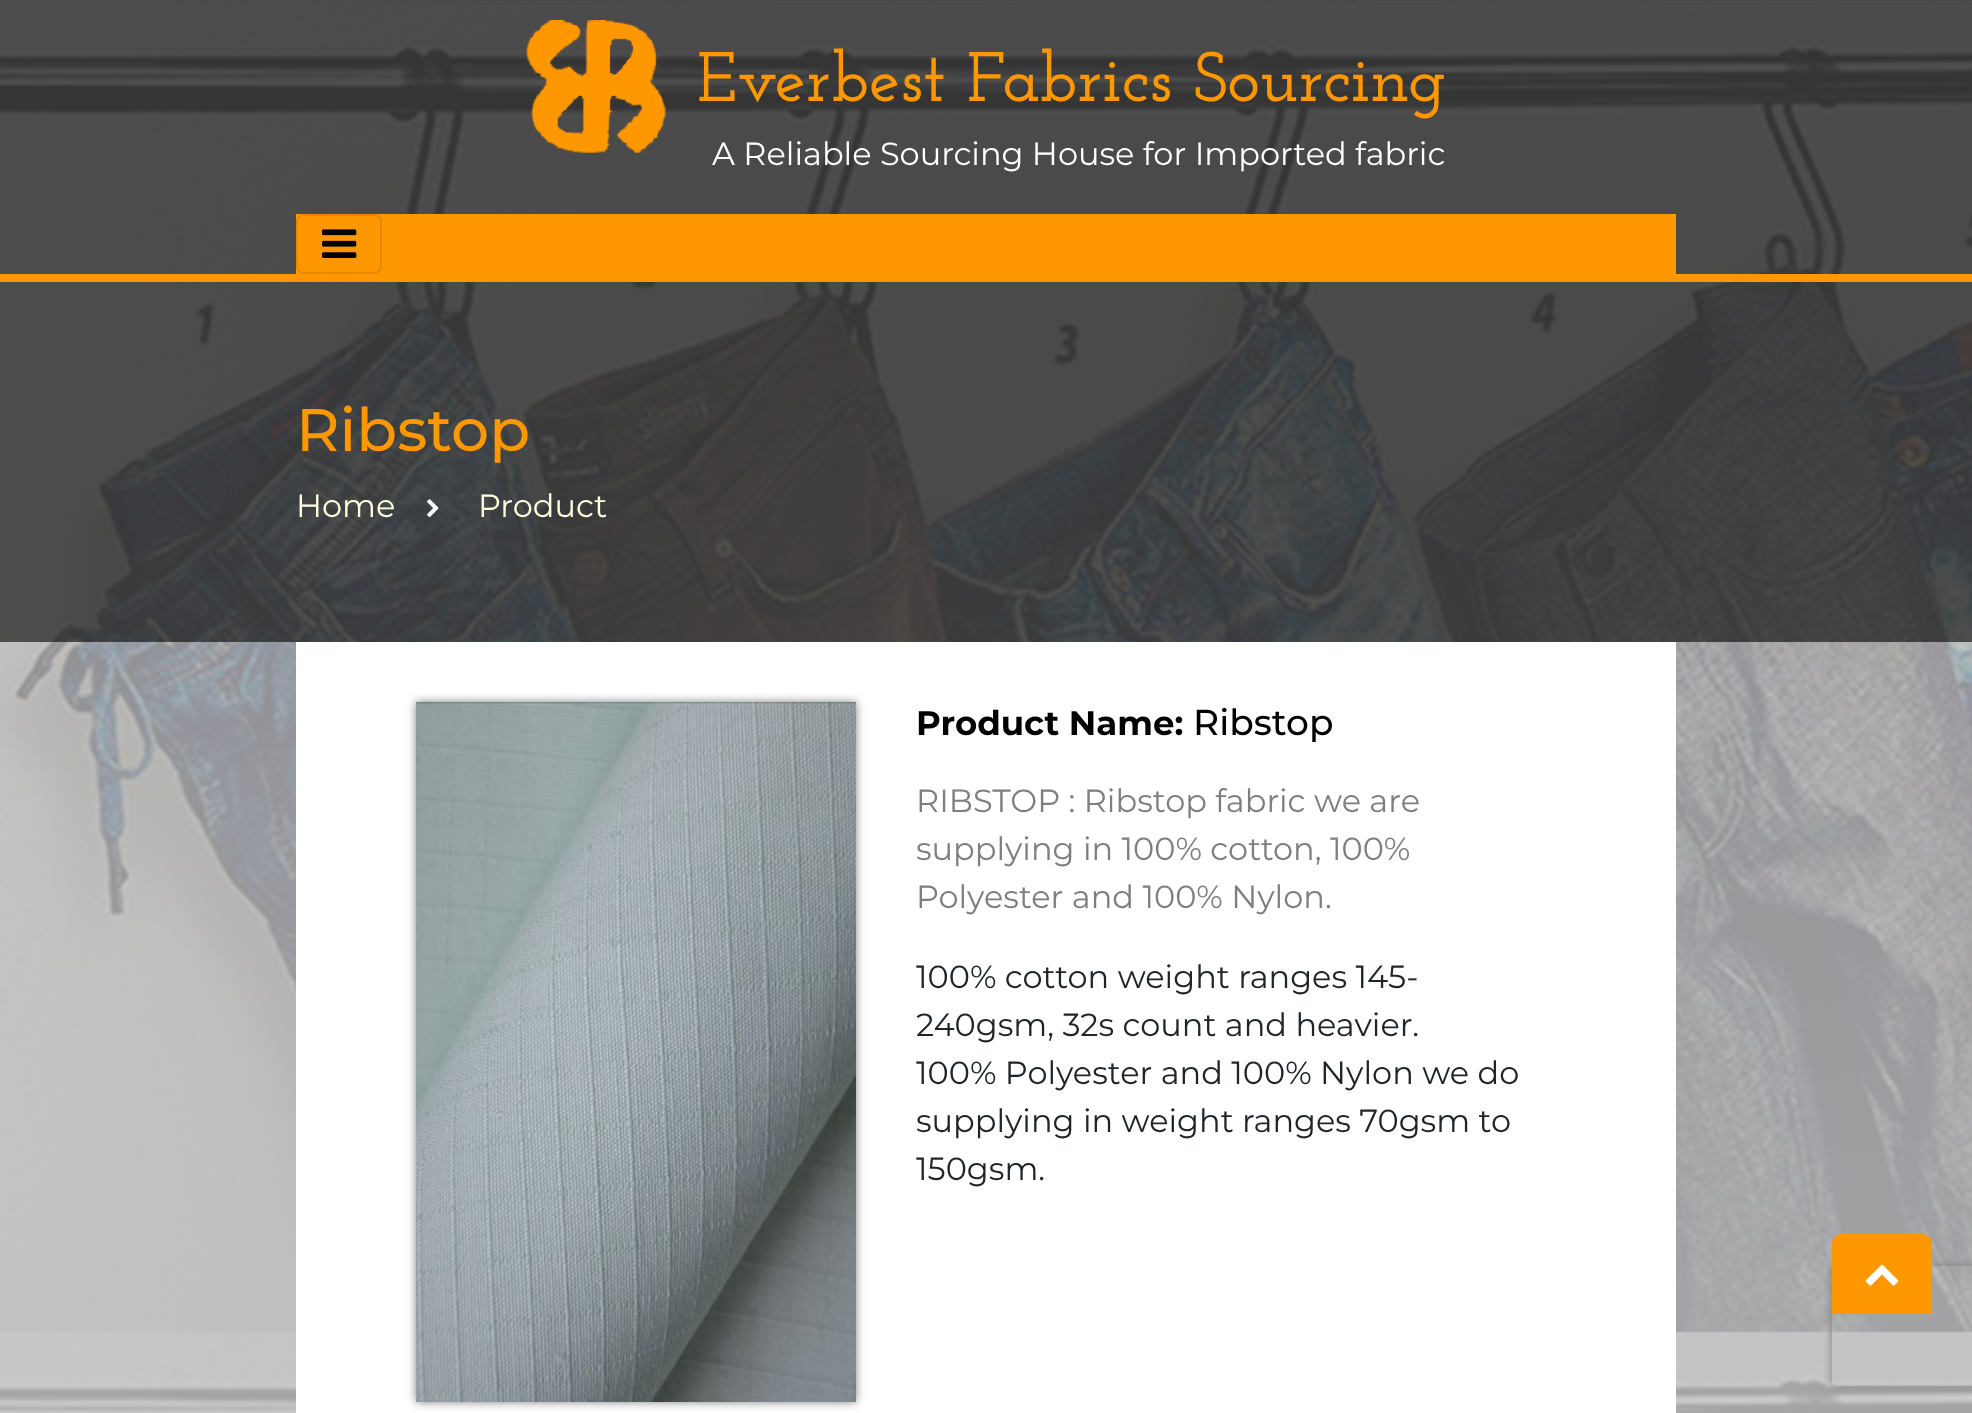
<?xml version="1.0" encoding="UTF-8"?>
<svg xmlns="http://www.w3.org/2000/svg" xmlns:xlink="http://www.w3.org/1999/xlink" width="1972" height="1413">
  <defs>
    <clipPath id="clip1"><path d="M 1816 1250 h 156 v 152 h -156 z m 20 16 h 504 c 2 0 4 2 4 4 v 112 c 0 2 -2 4 -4 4 h -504 c -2 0 -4 -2 -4 -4 v -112 c 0 -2 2 -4 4 -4 z" clip-rule="evenodd" /></clipPath>
  </defs>
  <rect width="100%" height="100%" fill="#ffffff" />
  <image x="0" y="0" width="1972" height="1413" xlink:href="image1.png" />
  <rect y="274" width="1972" height="8" fill="#ff9800" />
  <rect width="1972" height="274" fill="#000000" fill-opacity="0.6" />
  <image x="526" y="20" width="140" height="134" xlink:href="image2.png" />
  <rect x="296" y="214" width="1380" height="60" fill="#ff9800" />
  <rect x="297" y="215" width="84" height="58" rx="7" fill="none" stroke="#e68900" stroke-width="2" />
  <image x="322" y="229" width="35" height="29" xlink:href="image3.png" />
  <rect y="282" width="1972" height="360" fill="#000000" fill-opacity="0.6" />
  <image x="427" y="499" width="12" height="19" xlink:href="image4.png" />
  <rect x="296" y="642" width="1380" height="771" fill="#ffffff" />
  <rect x="416" y="702" width="440" height="700" fill="#000000" fill-opacity="0.5" filter="blur(5px)" />
  <image x="416" y="702" width="440" height="700" xlink:href="image5.png" />
  <g clip-path="url(#clip1)">
    <rect x="1832" y="1266" width="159" height="120" rx="4" fill="#808080" filter="blur(5px)" />
  </g>
  <path d="M 1842 1234 h 80 c 5.5 0 10 4.5 10 10 v 70 h -100 v -70 c 0 -5.5 4.5 -10 10 -10 z" fill="#ff9800" />
  <image x="1865" y="1264" width="34" height="22" xlink:href="image6.png" />
  <text x="697" y="101" style="font-family: Josefin Slab; font-size: 70px; font-weight: 600; fill: #ff9800">Everbest Fabrics Sourcing</text>
  <text x="712" y="165" style="font-family: Montserrat; font-size: 32px; fill: #ffffff">A Reliable Sourcing House for Imported fabric</text>
  <text x="296" y="451" style="font-family: Montserrat; font-size: 60px; font-weight: 500; fill: #ff9800">Ribstop</text>
  <text x="296" y="517" style="font-family: Montserrat; font-size: 32px; fill: #ffffe0">Home</text>
  <text x="478" y="517" style="font-family: Montserrat; font-size: 32px; fill: #ffffe0">Product</text>
  <text x="916" y="735" style="font-family: Montserrat; font-size: 34px; font-weight: bold; fill: #000000">Product Name:</text>
  <text x="1193" y="735" style="font-family: Montserrat; font-size: 36px; font-weight: 500; fill: #000000">Ribstop</text>
  <text x="916" y="812" style="font-family: Montserrat; font-size: 32px; fill: #7e7e7e">RIBSTOP : Ribstop fabric we are</text>
  <text x="916" y="860" style="font-family: Montserrat; font-size: 32px; fill: #7e7e7e">supplying in 100% cotton, 100%</text>
  <text x="916" y="908" style="font-family: Montserrat; font-size: 32px; fill: #7e7e7e">Polyester and 100% Nylon.</text>
  <text x="916" y="988" style="font-family: Montserrat; font-size: 32px; fill: #212529">100% cotton weight ranges 145-</text>
  <text x="916" y="1036" style="font-family: Montserrat; font-size: 32px; fill: #212529">240gsm, 32s count and heavier.</text>
  <text x="916" y="1084" style="font-family: Montserrat; font-size: 32px; fill: #212529">100% Polyester and 100% Nylon we do</text>
  <text x="916" y="1132" style="font-family: Montserrat; font-size: 32px; fill: #212529">supplying in weight ranges 70gsm to</text>
  <text x="916" y="1180" style="font-family: Montserrat; font-size: 32px; fill: #212529">150gsm.</text>
</svg>
